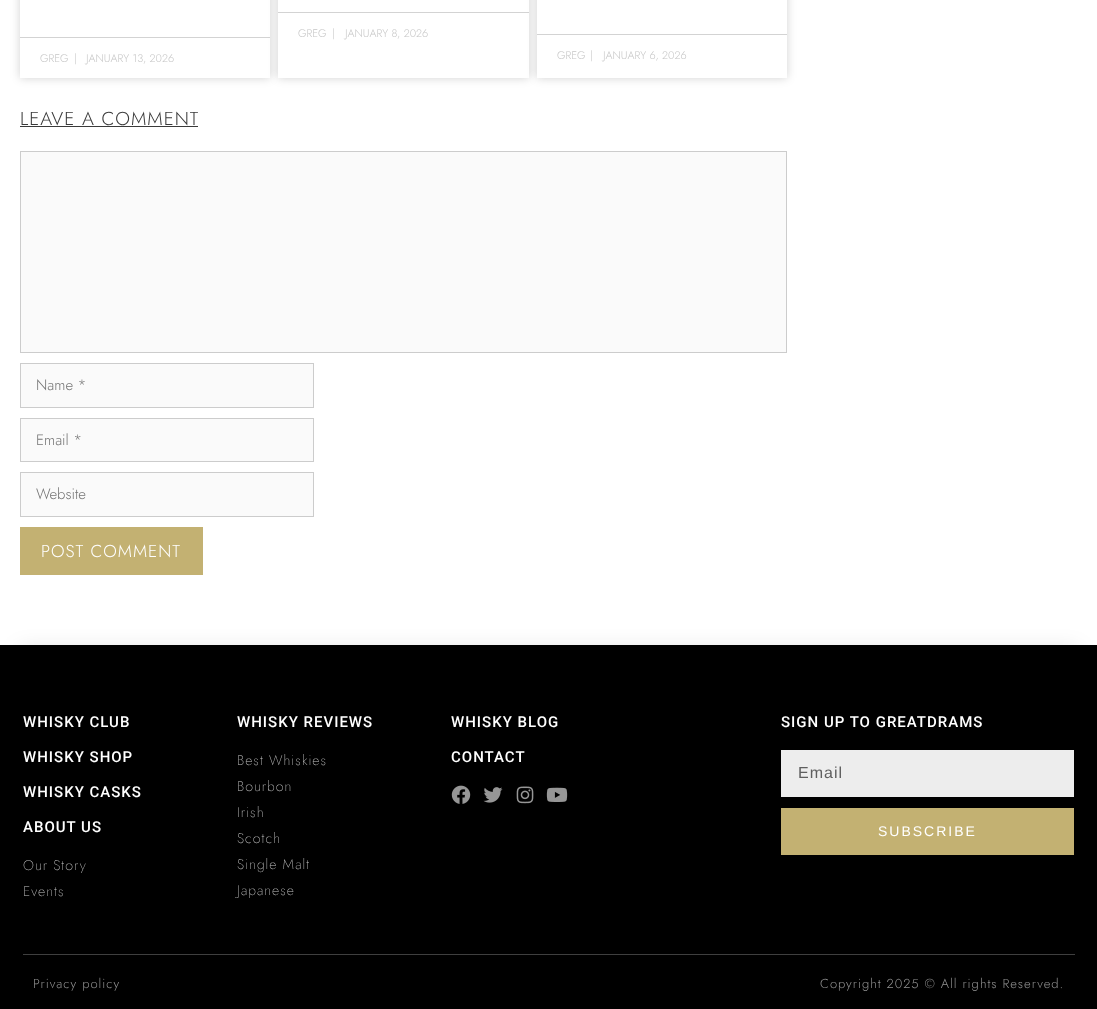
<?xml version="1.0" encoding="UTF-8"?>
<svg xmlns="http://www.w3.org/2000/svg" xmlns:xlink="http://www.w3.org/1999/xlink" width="1097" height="1009">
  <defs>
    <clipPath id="clip1"><path d="M 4 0 h 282 v 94 h -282 z m 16 -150 h 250 v 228 h -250 z" clip-rule="evenodd" /></clipPath>
  </defs>
  <rect width="100%" height="100%" fill="#ffffff" />
  <g clip-path="url(#clip1)">
    <rect x="20" y="-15" width="250" height="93" fill="#000000" fill-opacity="0.18" filter="blur(5px)" />
  </g>
  <rect x="20" y="37" width="250" height="1" fill="#d3d3d3" />
  <rect x="278" y="-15" width="251" height="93" fill="#000000" fill-opacity="0.18" filter="blur(5px)" />
  <rect x="278" width="251" height="78" fill="#ffffff" />
  <rect x="278" y="12" width="251" height="1" fill="#d3d3d3" />
  <rect x="537" y="-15" width="250" height="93" fill="#000000" fill-opacity="0.18" filter="blur(5px)" />
  <rect x="537" width="250" height="78" fill="#ffffff" />
  <rect x="537" y="34" width="250" height="1" fill="#d3d3d3" />
  <rect x="20" y="126" width="178" height="1" fill="#3a3a3a" />
  <rect x="20.5" y="151.5" width="766" height="201" fill="#fafafa" stroke="#cccccc" />
  <rect x="20.5" y="363.5" width="293" height="44" fill="#fafafa" stroke="#cccccc" />
  <rect x="20.5" y="418.5" width="293" height="43" fill="#fafafa" stroke="#cccccc" />
  <rect x="20.5" y="472.5" width="293" height="44" fill="#fafafa" stroke="#cccccc" />
  <rect x="20" y="527" width="183" height="48" fill="#c3b172" />
  <rect x="20" y="651" width="1057" height="257" fill="#000000" fill-opacity="0.15" filter="blur(11px)" />
  <rect y="645" width="1097" height="364" fill="#000000" />
  <image x="451" y="785" width="20" height="19" xlink:href="image1.png" />
  <image x="483" y="787" width="20" height="16" xlink:href="image2.png" />
  <image x="516" y="786" width="18" height="18" xlink:href="image3.png" />
  <image x="546" y="787" width="22" height="15" xlink:href="image4.png" />
  <rect x="781" y="750" width="293" height="47" fill="#ededed" />
  <rect x="781" y="808" width="293" height="47" fill="#c3b172" />
  <rect x="23" y="954" width="1052" height="1" fill="#3f3f3f" />
  <text x="298" y="37" style="font-family: Jost; font-size: 11px; font-weight: 300; fill: #c6c6c6">GREG</text>
  <text x="332" y="37" style="font-family: Jost; font-size: 11px; font-weight: 300; fill: #c6c6c6">|</text>
  <text x="345" y="37" style="font-family: Jost; font-size: 11px; font-weight: 300; fill: #c6c6c6">JANUARY 8, 2026</text>
  <text x="40" y="62" style="font-family: Jost; font-size: 11px; font-weight: 300; fill: #c6c6c6">GREG</text>
  <text x="74" y="62" style="font-family: Jost; font-size: 11px; font-weight: 300; fill: #c6c6c6">|</text>
  <text x="86" y="62" style="font-family: Jost; font-size: 11px; font-weight: 300; fill: #c6c6c6">JANUARY 13, 2026</text>
  <text x="557" y="59" style="font-family: Jost; font-size: 11px; font-weight: 300; fill: #c6c6c6">GREG</text>
  <text x="590" y="59" style="font-family: Jost; font-size: 11px; font-weight: 300; fill: #c6c6c6">|</text>
  <text x="603" y="59" style="font-family: Jost; font-size: 11px; font-weight: 300; fill: #c6c6c6">JANUARY 6, 2026</text>
  <text x="20" y="125" style="font-family: Jost; font-size: 18.75px; font-weight: 300; letter-spacing: 1px; fill: #3a3a3a">LEAVE A COMMENT</text>
  <text x="36" y="390" style="font-family: Jost; font-size: 15px; font-weight: 300; fill: #757575">Name *</text>
  <text x="36" y="445" style="font-family: Jost; font-size: 15px; font-weight: 300; fill: #757575">Email *</text>
  <text x="36" y="499" style="font-family: Jost; font-size: 15px; font-weight: 300; fill: #757575">Website</text>
  <text x="41" y="557" style="font-family: Jost; font-size: 17.25px; font-weight: 300; letter-spacing: 1px; fill: #ffffff">POST COMMENT</text>
  <text x="23" y="727" style="font-family: Roboto; font-size: 15px; font-weight: 500; letter-spacing: 1px; fill: #ffffff">WHISKY CLUB</text>
  <text x="23" y="762" style="font-family: Roboto; font-size: 15px; font-weight: 500; letter-spacing: 1px; fill: #ffffff">WHISKY SHOP</text>
  <text x="23" y="797" style="font-family: Roboto; font-size: 15px; font-weight: 500; letter-spacing: 1px; fill: #ffffff">WHISKY CASKS</text>
  <text x="23" y="832" style="font-family: Roboto; font-size: 15px; font-weight: 500; letter-spacing: 1px; fill: #ffffff">ABOUT US</text>
  <text x="23" y="870" style="font-family: Jost; font-size: 14px; font-weight: 200; letter-spacing: 1px; fill: #c6c6c6">Our Story</text>
  <text x="23" y="896" style="font-family: Jost; font-size: 14px; font-weight: 200; letter-spacing: 1px; fill: #c6c6c6">Events</text>
  <text x="237" y="727" style="font-family: Roboto; font-size: 15px; font-weight: 500; letter-spacing: 1px; fill: #ffffff">WHISKY REVIEWS</text>
  <text x="237" y="765" style="font-family: Jost; font-size: 14px; font-weight: 200; letter-spacing: 1px; fill: #c6c6c6">Best Whiskies</text>
  <text x="237" y="791" style="font-family: Jost; font-size: 14px; font-weight: 200; letter-spacing: 1px; fill: #c6c6c6">Bourbon</text>
  <text x="237" y="817" style="font-family: Jost; font-size: 14px; font-weight: 200; letter-spacing: 1px; fill: #c6c6c6">Irish</text>
  <text x="237" y="843" style="font-family: Jost; font-size: 14px; font-weight: 200; letter-spacing: 1px; fill: #c6c6c6">Scotch</text>
  <text x="237" y="869" style="font-family: Jost; font-size: 14px; font-weight: 200; letter-spacing: 1px; fill: #c6c6c6">Single Malt</text>
  <text x="237" y="895" style="font-family: Jost; font-size: 14px; font-weight: 200; letter-spacing: 1px; fill: #c6c6c6">Japanese</text>
  <text x="451" y="727" style="font-family: Roboto; font-size: 15px; font-weight: 500; letter-spacing: 1px; fill: #ffffff">WHISKY BLOG</text>
  <text x="451" y="762" style="font-family: Roboto; font-size: 15px; font-weight: 500; letter-spacing: 1px; fill: #ffffff">CONTACT</text>
  <text x="781" y="727" style="font-family: Roboto; font-size: 15px; font-weight: 500; letter-spacing: 1px; fill: #ffffff">SIGN UP TO GREATDRAMS</text>
  <text x="798" y="778" style="font-family: Liberation Sans; font-size: 16px; letter-spacing: 1px; fill: #5f5f5f">Email</text>
  <text x="878" y="836" style="font-family: Liberation Sans; font-size: 14px; letter-spacing: 2px; fill: #ffffff">SUBSCRIBE</text>
  <text x="33" y="988" style="font-family: Jost; font-size: 13px; font-weight: 300; letter-spacing: 1px; fill: #919191">Privacy policy</text>
  <text x="820" y="988" style="font-family: Jost; font-size: 13px; font-weight: 300; letter-spacing: 1px; fill: #919191">Copyright 2025 © All rights Reserved.</text>
</svg>
